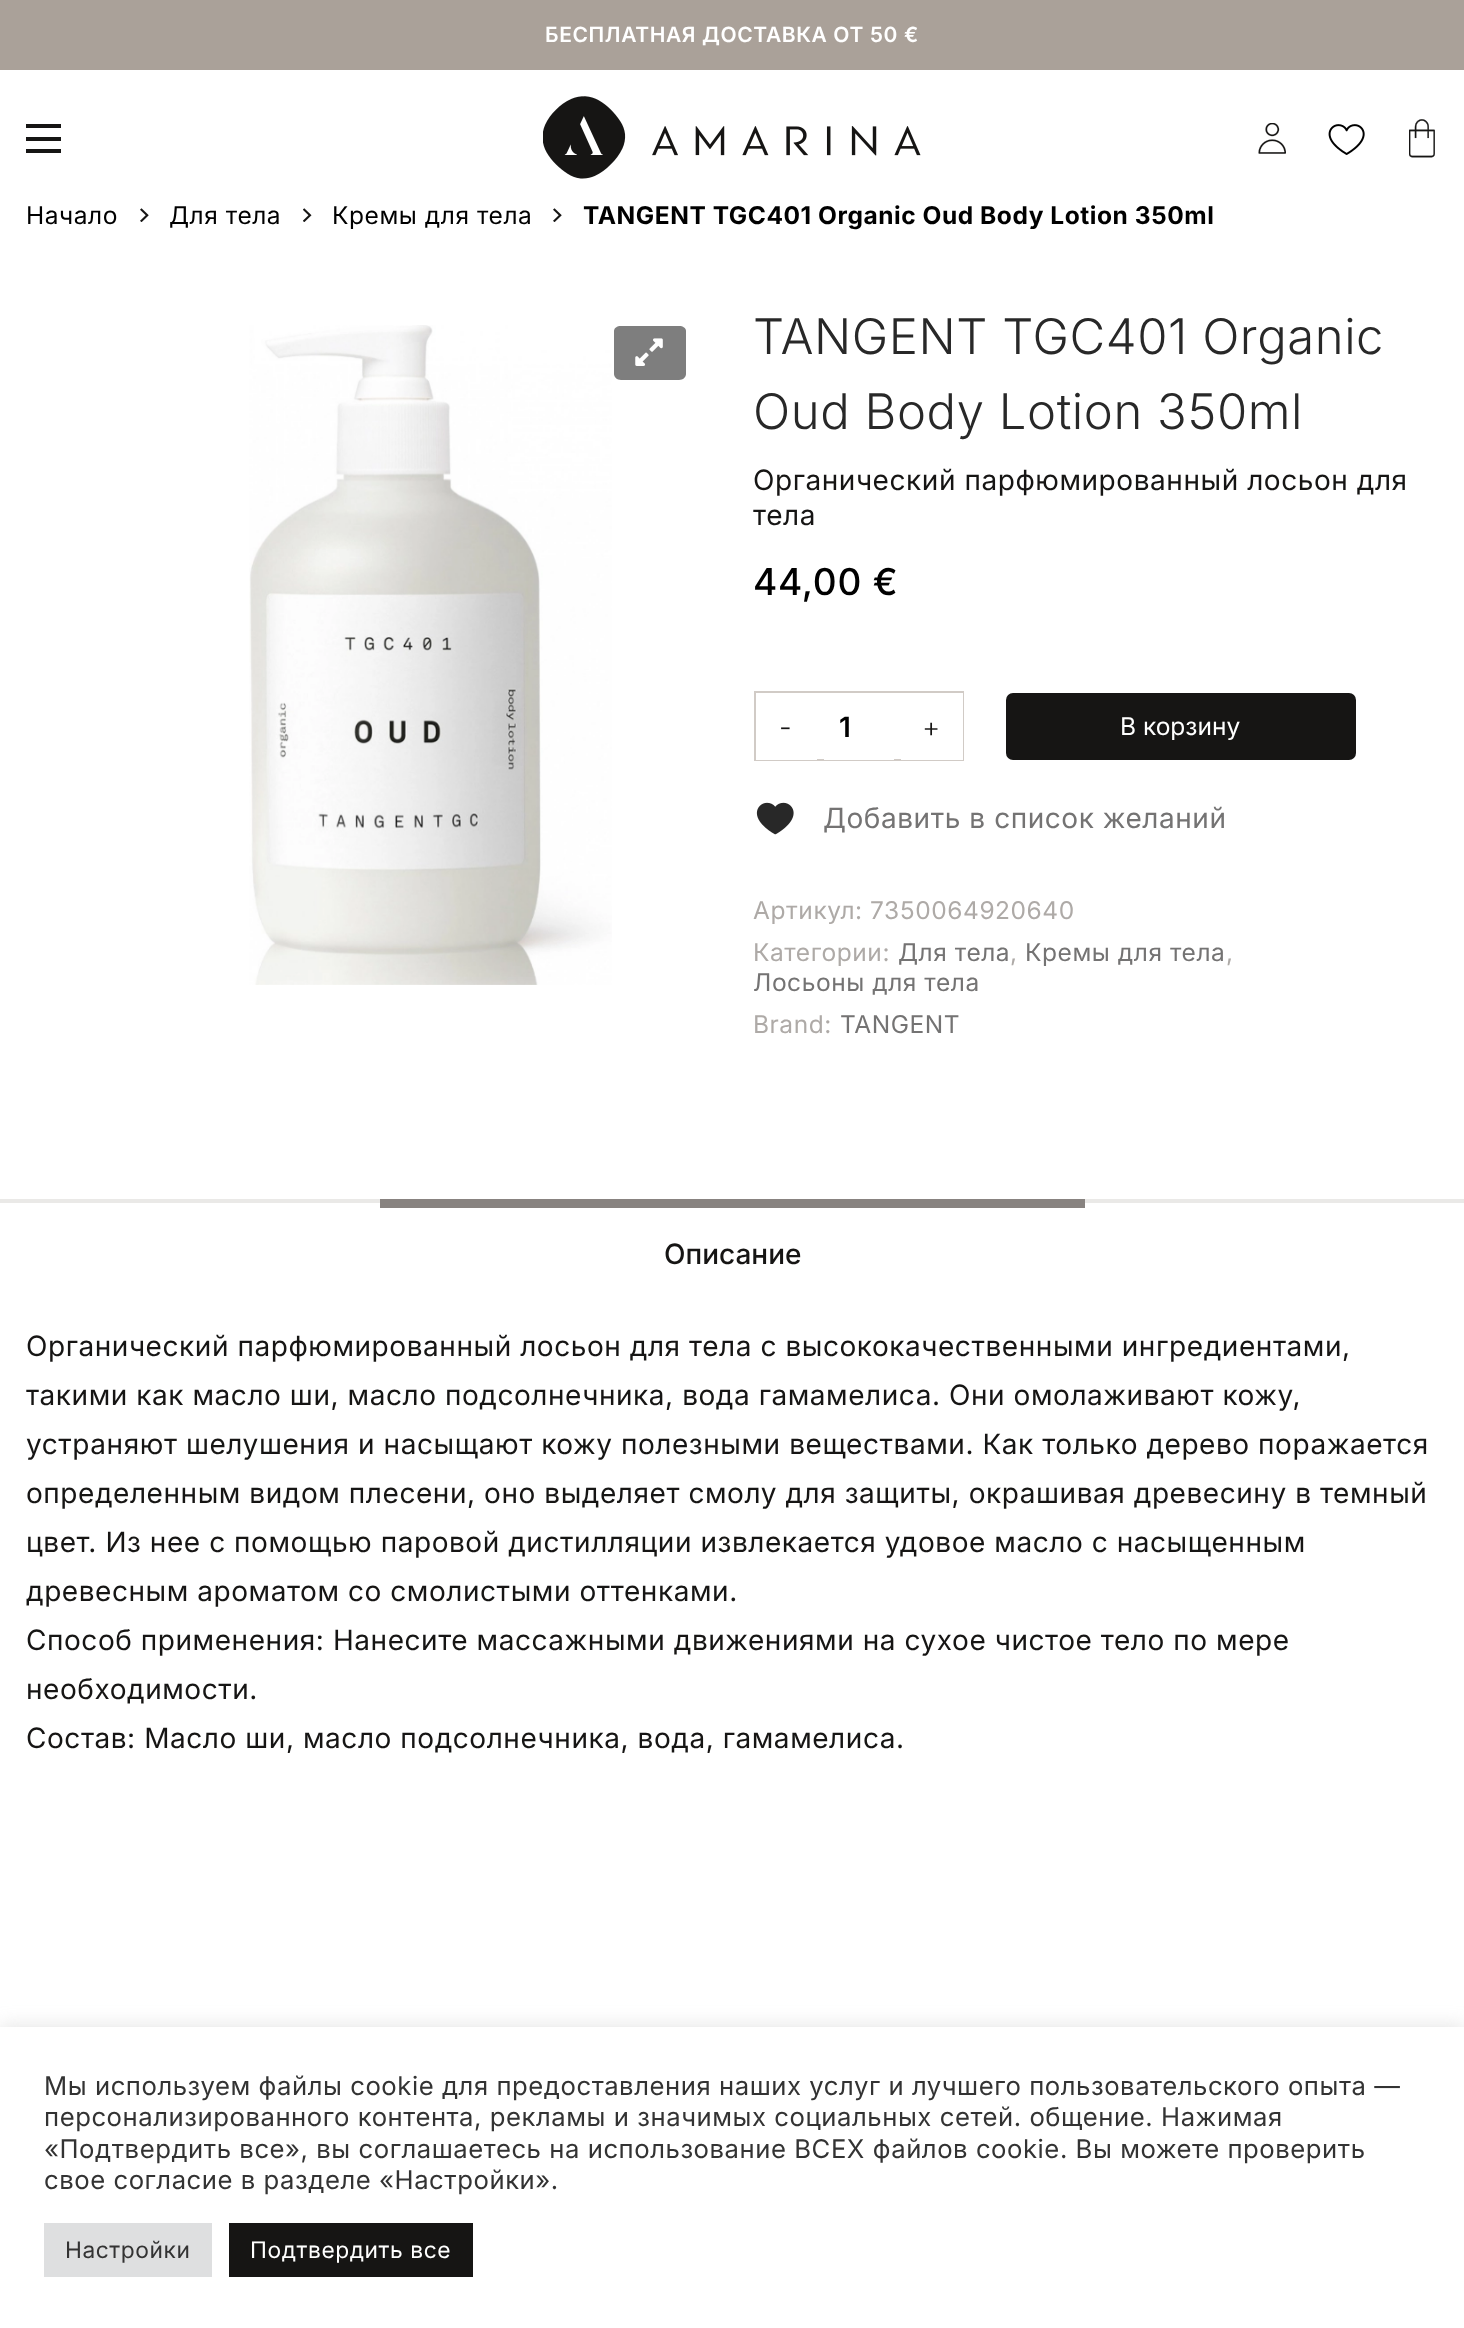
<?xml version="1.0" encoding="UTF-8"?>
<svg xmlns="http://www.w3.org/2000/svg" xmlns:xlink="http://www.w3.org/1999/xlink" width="1464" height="2328">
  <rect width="100%" height="100%" fill="#ffffff" />
  <rect width="1464" height="70" fill="#aaa199" />
  <rect x="26" y="137" width="35" height="4" fill="#161514" />
  <rect x="26" y="124" width="35" height="4" fill="#161514" />
  <rect x="26" y="149" width="35" height="4" fill="#161514" />
  <image x="543" y="96" width="378" height="83" xlink:href="image1.png" />
  <image x="1258" y="123" width="28" height="31" xlink:href="image2.png" />
  <image x="1328" y="124" width="37" height="31" xlink:href="image3.png" />
  <image x="1409" y="119" width="26" height="39" xlink:href="image4.png" />
  <image x="140" y="208" width="9" height="14" xlink:href="image5.png" />
  <image x="303" y="208" width="9" height="14" xlink:href="image6.png" />
  <image x="553" y="208" width="9" height="14" xlink:href="image5.png" />
  <image x="249" y="325" width="363" height="660" xlink:href="image7.png" />
  <path d="M 621 326 h 58 c 4 0 7 2 7 5 v 43 c 0 3 -3 6 -7 6 h -58 c -4 0 -7 -3 -7 -6 v -43 c 0 -3 3 -5 7 -5 z" fill="#7e7e7e" />
  <image x="635" y="338" width="28" height="28" xlink:href="image8.png" />
  <rect x="755" y="692" width="208" height="68" fill="none" stroke="#d1cbc6" stroke-width="2" />
  <rect x="756" y="759" width="61" height="1" fill="#ffffff" />
  <rect x="824" y="759" width="70" height="1" fill="#ffffff" />
  <rect x="901" y="693" width="62" height="67" fill="#ffffff" />
  <rect x="1006" y="693" width="350" height="67" rx="7" fill="#161514" />
  <image x="756" y="802" width="38" height="33" xlink:href="image9.png" />
  <rect y="1199" width="1464" height="4" fill="#eae9e7" />
  <rect x="380" y="1199" width="705" height="9" fill="#888380" />
  <rect y="2025" width="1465" height="303" fill="#acabab" fill-opacity="0.3" filter="blur(9px)" />
  <rect y="2027" width="1464" height="301" fill="#ffffff" />
  <rect x="44" y="2223" width="168" height="54" fill="#dedfe0" />
  <rect x="229" y="2223" width="244" height="54" fill="#161514" />
  <text x="545" y="42" style="font-family: Inter; font-size: 21px; font-weight: 600; letter-spacing: 0.6px; fill: #ffffff">БЕСПЛАТНАЯ ДОСТАВКА ОТ 50 €</text>
  <text x="26" y="224" style="font-family: Inter; font-size: 24.5px; letter-spacing: 0.55px; fill: #000000">Начало</text>
  <text x="169" y="224" style="font-family: Inter; font-size: 24.5px; letter-spacing: 0.55px; fill: #000000">Для тела</text>
  <text x="332" y="224" style="font-family: Inter; font-size: 24.5px; letter-spacing: 0.55px; fill: #000000">Кремы для тела</text>
  <text x="583" y="224" style="font-family: Inter; font-size: 24.5px; font-weight: bold; letter-spacing: 0.55px; fill: #000000">TANGENT TGC401 Organic Oud Body Lotion 350ml</text>
  <text x="753" y="354" style="font-family: Inter; font-size: 49px; font-weight: 300; letter-spacing: 0.55px; fill: #282828">TANGENT TGC401 Organic</text>
  <text x="753" y="429" style="font-family: Inter; font-size: 49px; font-weight: 300; letter-spacing: 0.55px; fill: #282828">Oud Body Lotion 350ml</text>
  <text x="753" y="490" style="font-family: Inter; font-size: 28px; letter-spacing: 0.55px; fill: #161514">Органический парфюмированный лосьон для</text>
  <text x="753" y="525" style="font-family: Inter; font-size: 28px; letter-spacing: 0.55px; fill: #161514">тела</text>
  <text x="753" y="595" style="font-family: Inter; font-size: 37px; font-weight: 500; letter-spacing: 0.75px; fill: #000000">44,00 €</text>
  <text x="779" y="737" style="font-family: Inter; font-size: 28px; font-weight: 300; fill: #161514">-</text>
  <text x="839" y="737" style="font-family: Inter; font-size: 28px; font-weight: 600; fill: #000000">1</text>
  <text x="922" y="737" style="font-family: Inter; font-size: 28px; font-weight: 300; fill: #161514">+</text>
  <text x="1120" y="735" style="font-family: Inter; font-size: 24.5px; fill: #ffffff">В корзину</text>
  <text x="823" y="828" style="font-family: Inter; font-size: 28px; letter-spacing: 0.55px; fill: #747373">Добавить в список желаний</text>
  <text x="753" y="919" style="font-family: Inter; font-size: 24.5px; letter-spacing: 0.55px; fill: #aeaaa7">Артикул: 7350064920640</text>
  <text x="753" y="961" style="font-family: Inter; font-size: 24.5px; letter-spacing: 0.55px; fill: #aeaaa7">Категории:</text>
  <text x="898" y="961" style="font-family: Inter; font-size: 24.5px; letter-spacing: 0.55px; fill: #747373">Для тела</text>
  <text x="1010" y="961" style="font-family: Inter; font-size: 24.5px; letter-spacing: 0.55px; fill: #aeaaa7">,</text>
  <text x="1025" y="961" style="font-family: Inter; font-size: 24.5px; letter-spacing: 0.55px; fill: #747373">Кремы для тела</text>
  <text x="1226" y="961" style="font-family: Inter; font-size: 24.5px; letter-spacing: 0.55px; fill: #aeaaa7">,</text>
  <text x="753" y="991" style="font-family: Inter; font-size: 24.5px; letter-spacing: 0.55px; fill: #747373">Лосьоны для тела</text>
  <text x="753" y="1033" style="font-family: Inter; font-size: 24.5px; letter-spacing: 0.55px; fill: #aeaaa7">Brand:</text>
  <text x="840" y="1033" style="font-family: Inter; font-size: 24.5px; letter-spacing: 0.55px; fill: #747373">TANGENT</text>
  <text x="664" y="1264" style="font-family: Inter; font-size: 28px; font-weight: 500; fill: #161514">Описание</text>
  <text x="26" y="1356" style="font-family: Inter; font-size: 28px; letter-spacing: 0.55px; fill: #161514">Органический парфюмированный лосьон для тела с высококачественными ингредиентами,</text>
  <text x="26" y="1405" style="font-family: Inter; font-size: 28px; letter-spacing: 0.55px; fill: #161514">такими как масло ши, масло подсолнечника, вода гамамелиса. Они омолаживают кожу,</text>
  <text x="26" y="1454" style="font-family: Inter; font-size: 28px; letter-spacing: 0.55px; fill: #161514">устраняют шелушения и насыщают кожу полезными веществами. Как только дерево поражается</text>
  <text x="26" y="1503" style="font-family: Inter; font-size: 28px; letter-spacing: 0.55px; fill: #161514">определенным видом плесени, оно выделяет смолу для защиты, окрашивая древесину в темный</text>
  <text x="26" y="1552" style="font-family: Inter; font-size: 28px; letter-spacing: 0.55px; fill: #161514">цвет. Из нее с помощью паровой дистилляции извлекается удовое масло с насыщенным</text>
  <text x="26" y="1601" style="font-family: Inter; font-size: 28px; letter-spacing: 0.55px; fill: #161514">древесным ароматом со смолистыми оттенками.</text>
  <text x="26" y="1650" style="font-family: Inter; font-size: 28px; letter-spacing: 0.55px; fill: #161514">Способ применения: Нанесите массажными движениями на сухое чистое тело по мере</text>
  <text x="26" y="1699" style="font-family: Inter; font-size: 28px; letter-spacing: 0.55px; fill: #161514">необходимости.</text>
  <text x="26" y="1748" style="font-family: Inter; font-size: 28px; letter-spacing: 0.55px; fill: #161514">Состав: Масло ши, масло подсолнечника, вода, гамамелиса.</text>
  <text x="44" y="2095" style="font-family: Inter; font-size: 25.67px; letter-spacing: 0.55px; fill: #333333">Мы используем файлы cookie для предоставления наших услуг и лучшего пользовательского опыта —</text>
  <text x="44" y="2126" style="font-family: Inter; font-size: 25.67px; letter-spacing: 0.55px; fill: #333333">персонализированного контента, рекламы и значимых социальных сетей. общение. Нажимая</text>
  <text x="44" y="2158" style="font-family: Inter; font-size: 25.67px; letter-spacing: 0.55px; fill: #333333">«Подтвердить все», вы соглашаетесь на использование ВСЕХ файлов cookie. Вы можете проверить</text>
  <text x="44" y="2189" style="font-family: Inter; font-size: 25.67px; letter-spacing: 0.55px; fill: #333333">свое согласие в разделе «Настройки».</text>
  <text x="65" y="2258" style="font-family: Inter; font-size: 22.75px; letter-spacing: 0.55px; fill: #333333">Настройки</text>
  <text x="250" y="2258" style="font-family: Inter; font-size: 22.75px; letter-spacing: 0.55px; fill: #ffffff">Подтвердить все</text>
</svg>
